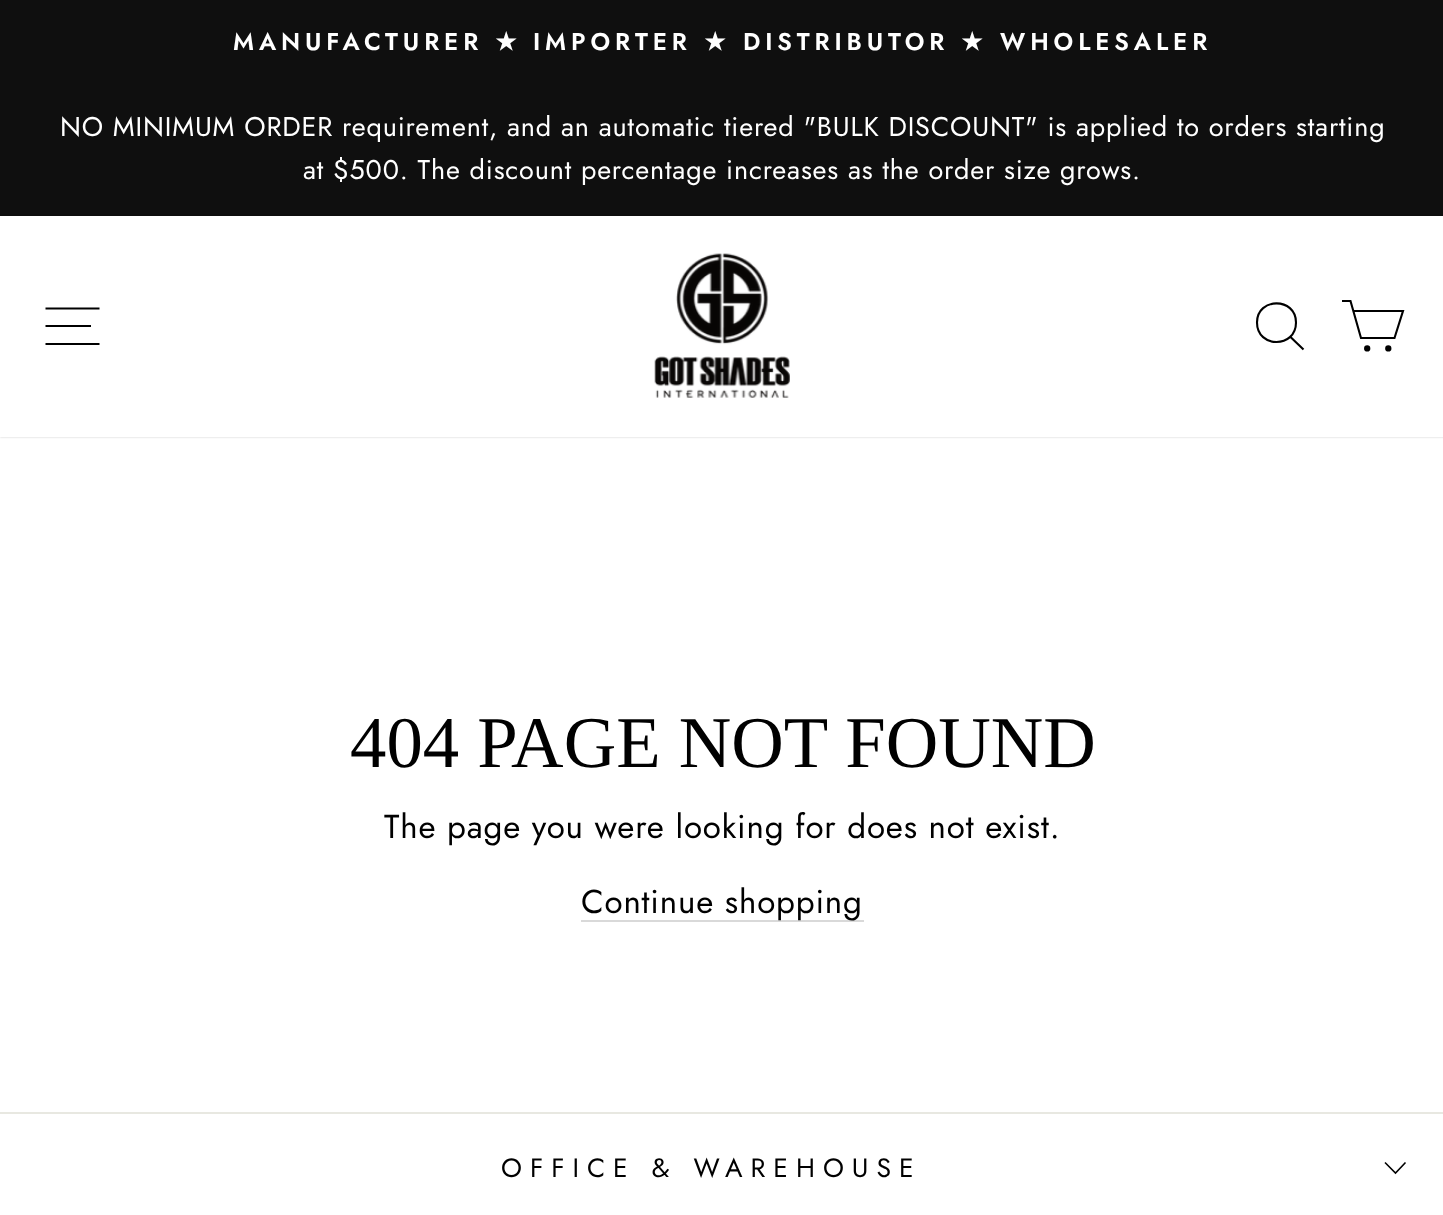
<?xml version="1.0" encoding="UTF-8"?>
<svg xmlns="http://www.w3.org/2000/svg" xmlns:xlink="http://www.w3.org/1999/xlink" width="1443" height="1215">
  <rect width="100%" height="100%" fill="#ffffff" />
  <rect width="1443" height="216" fill="#0f0f0f" />
  <rect y="216" width="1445" height="221" fill="#000000" fill-opacity="0.2" filter="blur(1px)" />
  <rect y="216" width="1443" height="221" fill="#ffffff" />
  <path d="M 45.5 308.5 h 54 m -54 17.5 h 45.5 m -45.5 18 h 54" fill="none" stroke="#000000" stroke-width="2.1" />
  <image x="654" y="253" width="136" height="145" xlink:href="image1.png" />
  <path d="M 1296 322.5 c 0 26 -39 26 -39 0 c 0 -25.5 39 -25.5 39 0 z m 7.5 27 l -13 -12.5" fill="none" stroke="#000000" stroke-width="2.1" />
  <path d="M 1353.5 311 h 49.5 l -8.5 27 h -33.5 l -10.5 -37 h -8.5" fill="none" stroke="#000000" stroke-width="2.1" />
  <circle cx="1367.2" cy="348.4" r="2.1" fill="#000000" stroke="#000000" stroke-width="2.1" />
  <circle cx="1388.3" cy="348.4" r="2.1" fill="#000000" stroke="#000000" stroke-width="2.1" />
  <rect x="581" y="920" width="283" height="2" fill="#d9d9d9" />
  <rect y="1112" width="1443" height="2" fill="#e8e8e1" />
  <path d="M 1385 1162.5 l 10.5 10.5 l 10 -10.5" fill="none" stroke="#000000" stroke-width="1.6" />
  <text x="233" y="50" style="font-family: Jost; font-size: 24.25px; font-weight: 600; letter-spacing: 4.9px; fill: #ffffff">MANUFACTURER</text>
  <text x="495" y="50" style="font-family: DejaVu Sans; font-size: 24.25px; font-weight: bold; letter-spacing: 4.9px; fill: #ffffff">★</text>
  <text x="533" y="50" style="font-family: Jost; font-size: 24.25px; font-weight: 600; letter-spacing: 4.9px; fill: #ffffff">IMPORTER</text>
  <text x="704" y="50" style="font-family: DejaVu Sans; font-size: 24.25px; font-weight: bold; letter-spacing: 4.9px; fill: #ffffff">★</text>
  <text x="743" y="50" style="font-family: Jost; font-size: 24.25px; font-weight: 600; letter-spacing: 4.9px; fill: #ffffff">DISTRIBUTOR</text>
  <text x="961" y="50" style="font-family: DejaVu Sans; font-size: 24.25px; font-weight: bold; letter-spacing: 4.9px; fill: #ffffff">★</text>
  <text x="1000" y="50" style="font-family: Jost; font-size: 24.25px; font-weight: 600; letter-spacing: 4.9px; fill: #ffffff">WHOLESALER</text>
  <text x="60" y="136" style="font-family: Jost; font-size: 27px; letter-spacing: 0.83px; fill: #ffffff">NO MINIMUM ORDER requirement, and an automatic tiered "BULK DISCOUNT" is applied to orders starting</text>
  <text x="303" y="179" style="font-family: Jost; font-size: 27px; letter-spacing: 0.83px; fill: #ffffff">at $500. The discount percentage increases as the order size grows.</text>
  <text x="350" y="767" style="font-family: Liberation Serif; font-size: 72.75px; fill: #000000">404 PAGE NOT FOUND</text>
  <text x="384" y="838" style="font-family: Jost; font-size: 33.1px; letter-spacing: 0.83px; fill: #000000">The page you were looking for does not exist.</text>
  <text x="581" y="913" style="font-family: Jost; font-size: 33.1px; letter-spacing: 0.83px; fill: #000000">Continue shopping</text>
  <text x="501" y="1177" style="font-family: Jost; font-size: 26.5px; letter-spacing: 8px; fill: #000000">OFFICE &amp; WAREHOUSE</text>
</svg>
